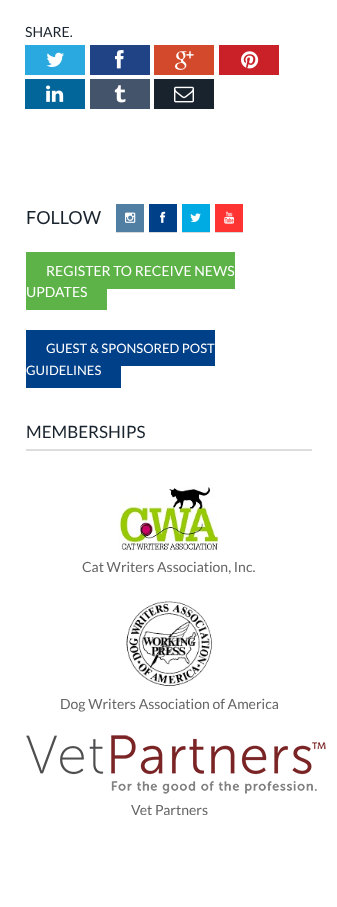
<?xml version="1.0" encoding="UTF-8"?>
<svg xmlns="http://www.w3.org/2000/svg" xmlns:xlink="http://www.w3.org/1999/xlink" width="337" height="907">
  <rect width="100%" height="100%" fill="#ffffff" />
  <rect x="25" y="45" width="60" height="30" fill="#2aa9e0" />
  <image x="46" y="52" width="18" height="15" xlink:href="image1.png" />
  <rect x="90" y="45" width="60" height="30" fill="#204385" />
  <image x="115" y="50" width="9" height="19" xlink:href="image2.png" />
  <rect x="154" y="45" width="60" height="30" fill="#d3492c" />
  <image x="175" y="51" width="19" height="19" xlink:href="image3.png" />
  <rect x="219" y="45" width="60" height="30" fill="#ca2128" />
  <image x="241" y="51" width="18" height="18" xlink:href="image4.png" />
  <rect x="25" y="79" width="60" height="30" fill="#02669a" />
  <image x="46" y="85" width="18" height="17" xlink:href="image5.png" />
  <rect x="90" y="79" width="60" height="30" fill="#44546b" />
  <image x="114" y="85" width="12" height="18" xlink:href="image6.png" />
  <rect x="154" y="79" width="60" height="30" fill="#19232d" />
  <image x="174" y="86" width="20" height="17" xlink:href="image7.png" />
  <rect x="116" y="232" width="28" height="1" fill="#d9d9d9" />
  <rect x="116" y="204" width="28" height="28" fill="#517fa4" />
  <image x="125" y="212" width="11" height="11" xlink:href="image8.png" />
  <rect x="149" y="232" width="28" height="1" fill="#d9d9d9" />
  <rect x="149" y="204" width="28" height="28" fill="#004088" />
  <image x="160" y="211" width="6" height="12" xlink:href="image9.png" />
  <rect x="182" y="232" width="28" height="1" fill="#d9d9d9" />
  <rect x="182" y="204" width="28" height="28" fill="#00abe3" />
  <image x="190" y="213" width="11" height="9" xlink:href="image10.png" />
  <rect x="215" y="232" width="28" height="1" fill="#d9d9d9" />
  <rect x="215" y="204" width="28" height="28" fill="#fe3432" />
  <image x="224" y="211" width="11" height="13" xlink:href="image11.png" />
  <rect x="26" y="252" width="209" height="37" fill="#5db347" />
  <rect x="26" y="289" width="81" height="21" fill="#5db347" />
  <rect x="26" y="330" width="189" height="36" fill="#004088" />
  <rect x="26" y="366" width="95" height="22" fill="#004088" />
  <rect x="26" y="449" width="286" height="2" fill="#dddddd" />
  <image x="119" y="487" width="100" height="64" xlink:href="image12.png" />
  <image x="126" y="601" width="86" height="85" xlink:href="image13.png" />
  <image x="26" y="735" width="300" height="59" xlink:href="image14.png" />
  <text x="25" y="37" style="font-family: Lato; font-size: 14px; fill: #19232d">SHARE.</text>
  <text x="26" y="224" style="font-family: Lato; font-size: 18px; fill: #19232d">FOLLOW</text>
  <text x="46" y="276" style="font-family: Lato; font-size: 14px; fill: #ffffff">REGISTER TO RECEIVE NEWS</text>
  <text x="26" y="297" style="font-family: Lato; font-size: 14px; fill: #ffffff">UPDATES</text>
  <text x="46" y="353" style="font-family: Lato; font-size: 13px; fill: #ffffff">GUEST &amp; SPONSORED POST</text>
  <text x="26" y="375" style="font-family: Lato; font-size: 13px; fill: #ffffff">GUIDELINES</text>
  <text x="26" y="438" style="font-family: Lato; font-size: 17px; fill: #19232d">MEMBERSHIPS</text>
  <text x="82" y="572" style="font-family: Lato; font-size: 14px; fill: #656565">Cat Writers Association, Inc.</text>
  <text x="60" y="709" style="font-family: Lato; font-size: 14px; fill: #656565">Dog Writers Association of America</text>
  <text x="131" y="815" style="font-family: Lato; font-size: 14px; fill: #656565">Vet Partners</text>
</svg>
